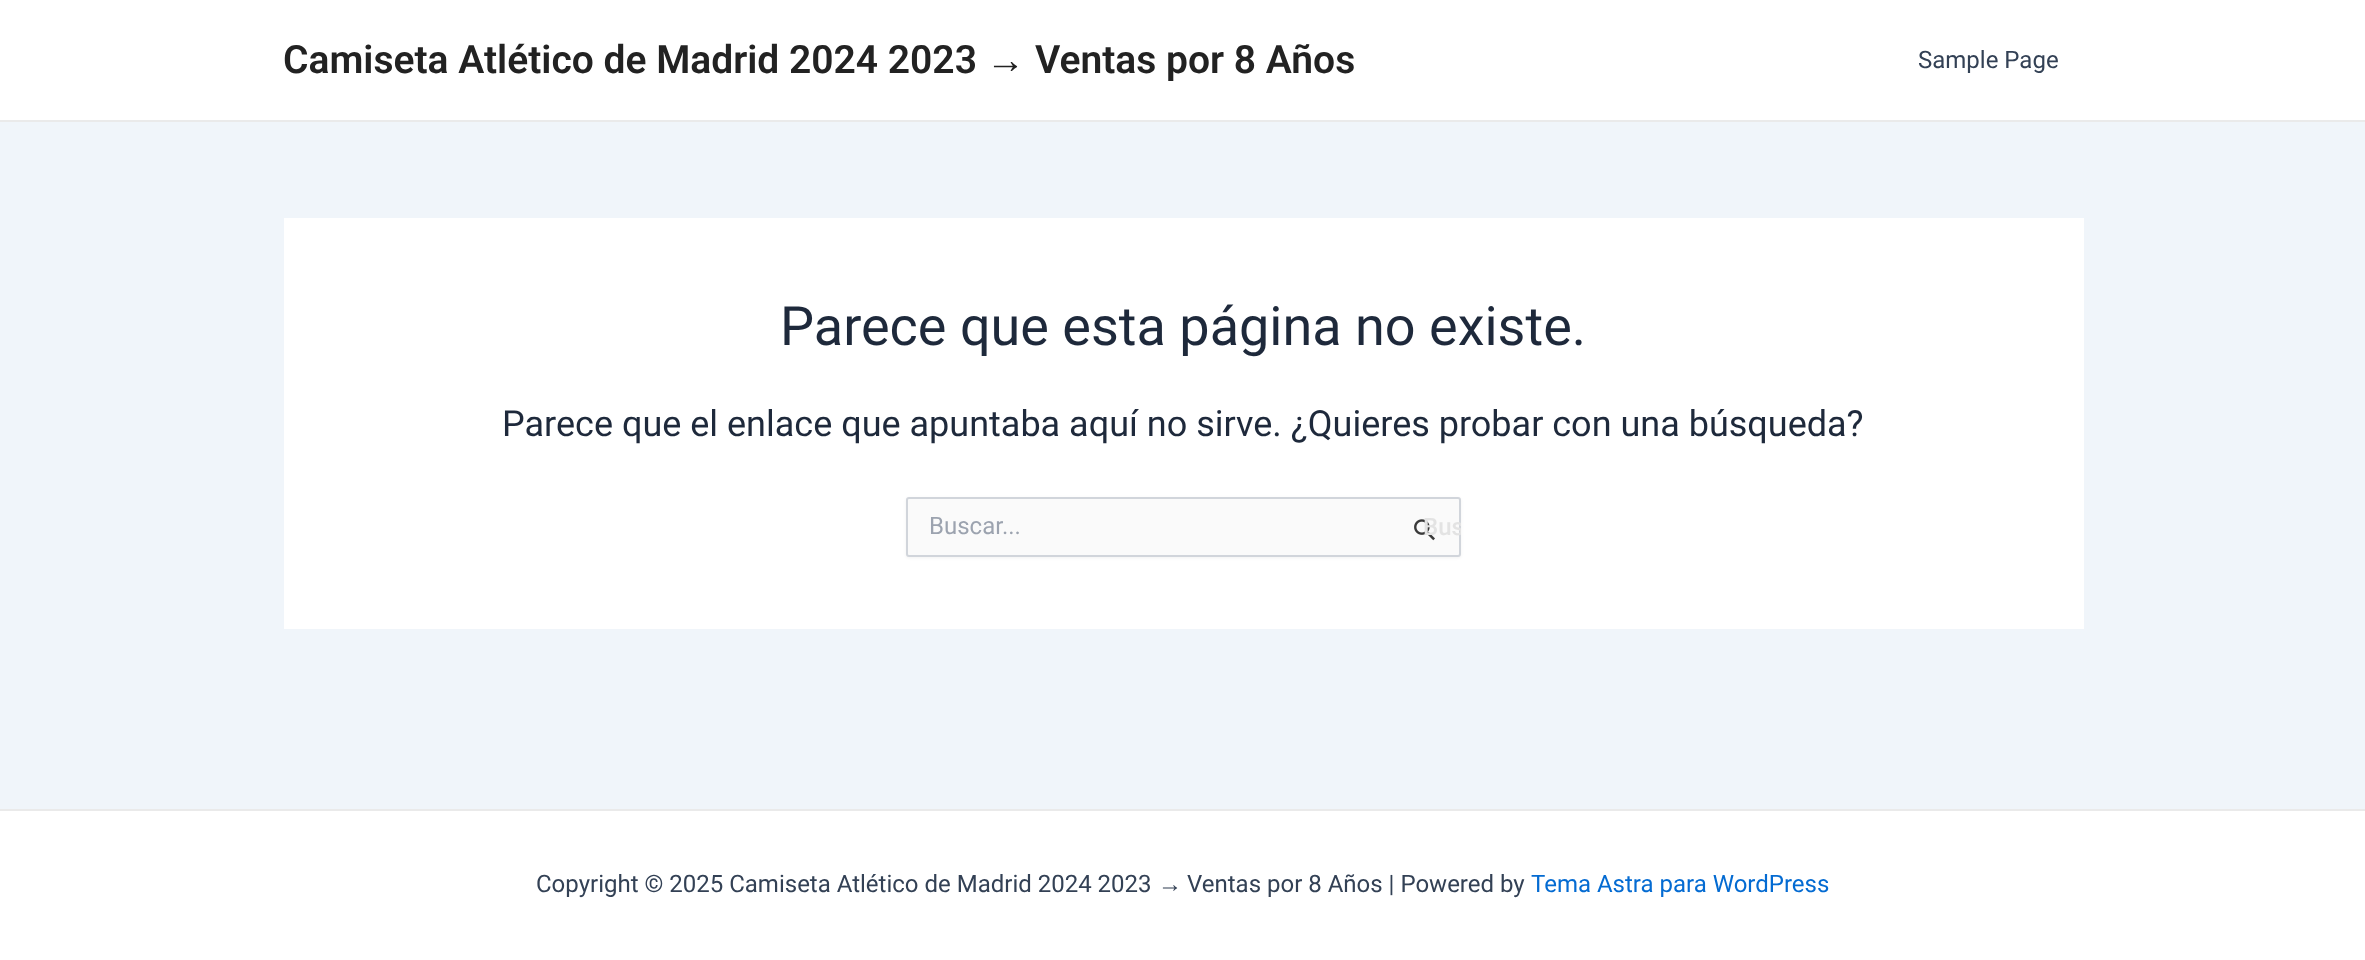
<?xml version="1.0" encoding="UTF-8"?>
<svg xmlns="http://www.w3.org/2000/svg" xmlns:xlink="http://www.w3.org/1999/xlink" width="2365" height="960">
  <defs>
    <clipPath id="clip1"><rect x="1394" y="497" width="67" height="63" rx="3" /></clipPath>
  </defs>
  <rect width="100%" height="100%" fill="#f0f5fa" />
  <rect width="2365" height="120" fill="#ffffff" />
  <rect y="120" width="2365" height="2" fill="#eaeaea" />
  <rect x="284" y="218" width="1800" height="411" fill="#ffffff" />
  <rect x="906" y="498" width="555" height="60" rx="3" fill="#000000" fill-opacity="0.05" filter="blur(1.5px)" />
  <rect x="907" y="498" width="553" height="58" rx="2" fill="#fafafa" stroke="#d1d5db" stroke-width="2" />
  <image x="1414" y="519" width="21" height="22" xlink:href="image1.png" />
  <rect y="811" width="2365" height="149" fill="#ffffff" />
  <rect y="809" width="2365" height="2" fill="#eaeaea" />
  <text x="283" y="73" style="font-family: Roboto; font-size: 39px; font-weight: 600; fill: #222222">Camiseta Atlético de Madrid 2024 2023</text>
  <text x="986" y="73" style="font-family: Liberation Sans; font-size: 39px; font-weight: bold; fill: #222222">→</text>
  <text x="1035" y="73" style="font-family: Roboto; font-size: 39px; font-weight: 600; fill: #222222">Ventas por 8 Años</text>
  <text x="1918" y="68" style="font-family: Roboto; font-size: 24px; fill: #334155">Sample Page</text>
  <text x="780" y="345" style="font-family: Roboto; font-size: 54px; fill: #1e293b">Parece que esta página no existe.</text>
  <text x="502" y="436" style="font-family: Roboto; font-size: 36px; fill: #1e293b">Parece que el enlace que apuntaba aquí no sirve. ¿Quieres probar con una búsqueda?</text>
  <text x="929" y="534" style="font-family: Roboto; font-size: 24px; fill: #9ca3af">Buscar...</text>
  <g clip-path="url(#clip1)">
    <text x="1423" y="535" style="font-family: Roboto; font-size: 24px; font-weight: 500; fill: #e3e3e3">Bus</text>
  </g>
  <text x="536" y="892" style="font-family: Roboto; font-size: 24px; fill: #334155">Copyright © 2025 Camiseta Atlético de Madrid 2024 2023</text>
  <text x="1158" y="892" style="font-family: Liberation Sans; font-size: 24px; fill: #334155">→</text>
  <text x="1187" y="892" style="font-family: Roboto; font-size: 24px; fill: #334155">Ventas por 8 Años | Powered by</text>
  <text x="1531" y="892" style="font-family: Roboto; font-size: 24px; fill: #046bd2">Tema Astra para WordPress</text>
</svg>
